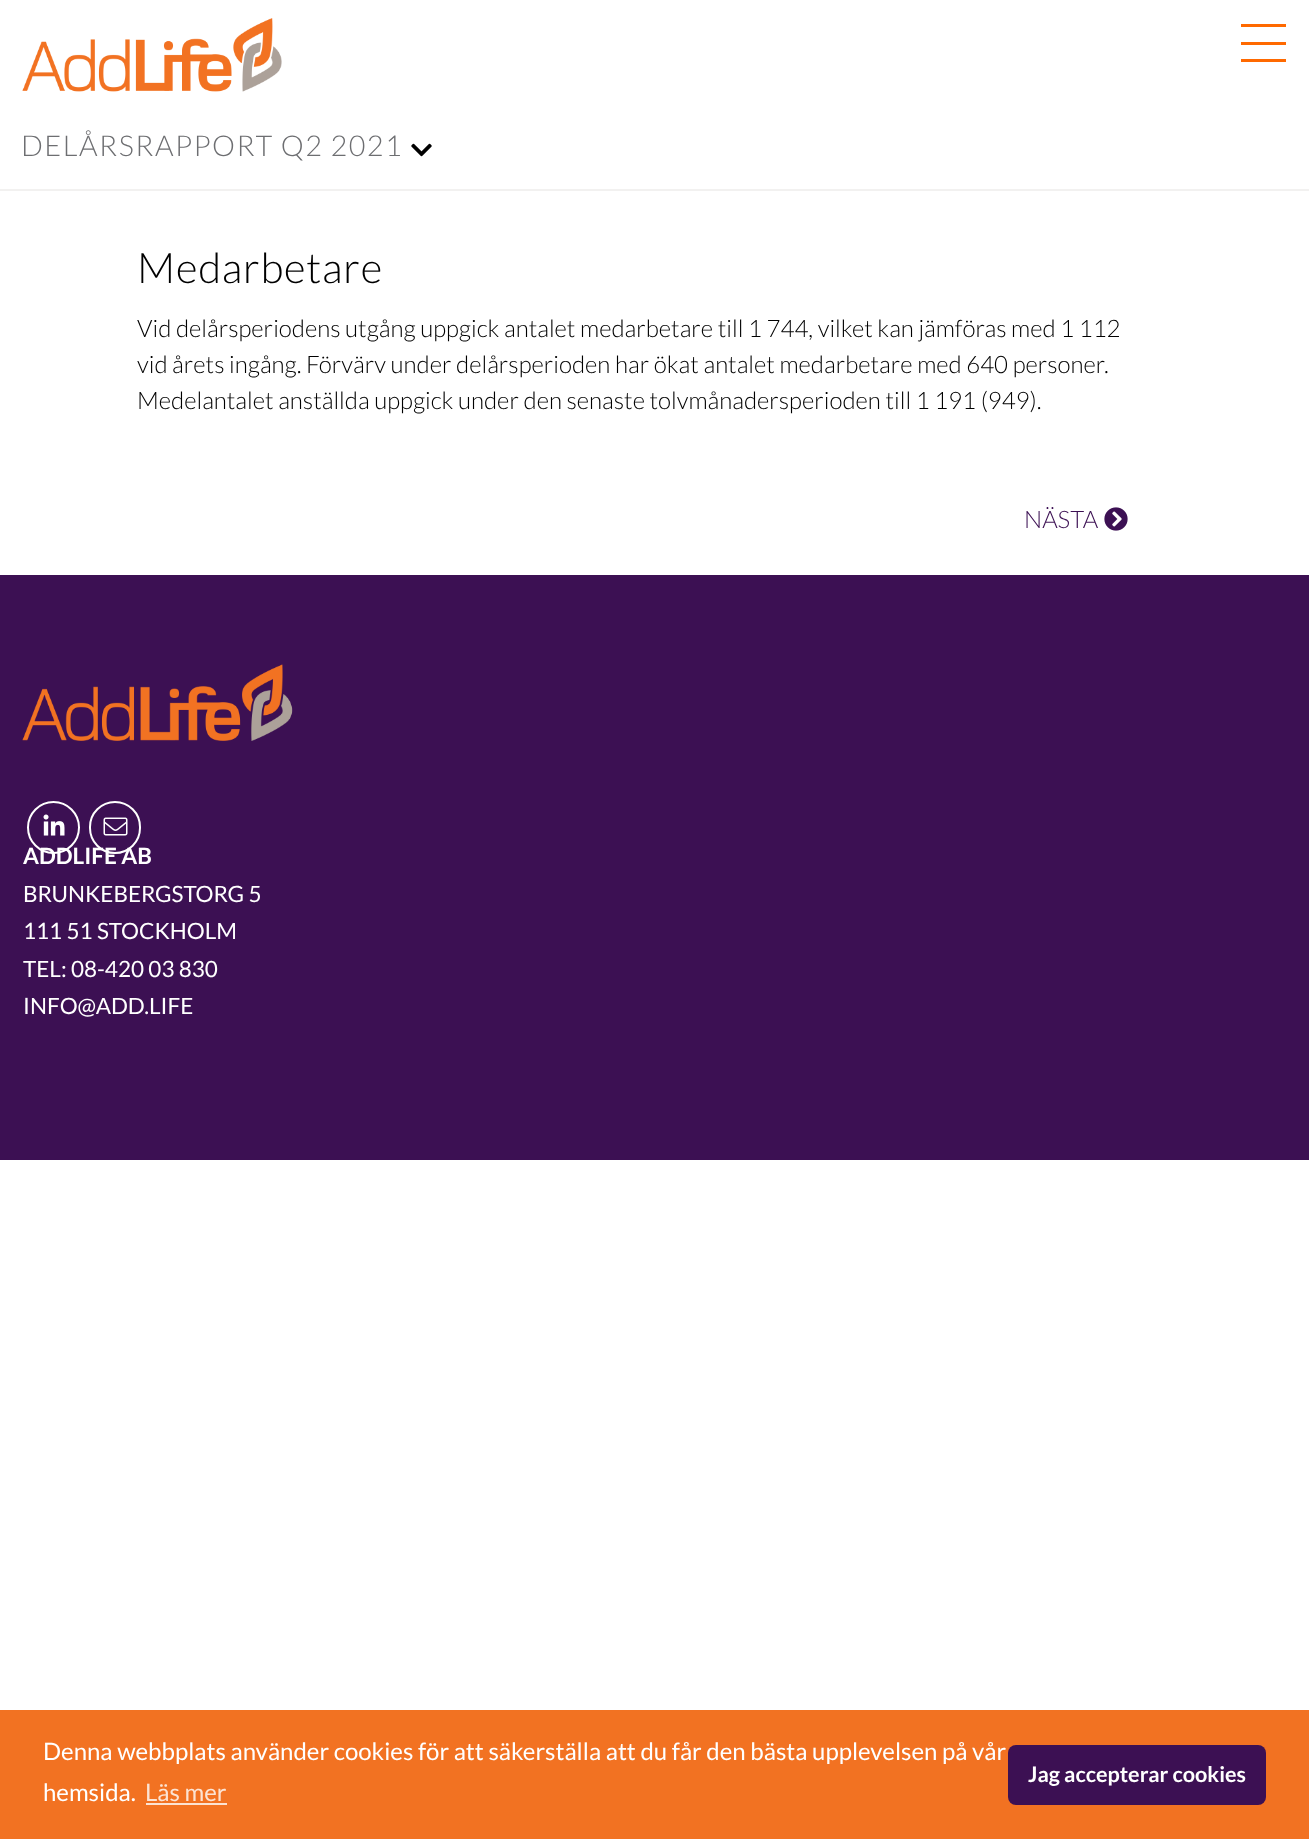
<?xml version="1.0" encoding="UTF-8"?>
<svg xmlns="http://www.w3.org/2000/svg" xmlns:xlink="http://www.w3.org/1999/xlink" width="1309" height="1839">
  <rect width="100%" height="100%" fill="#ffffff" />
  <rect y="189" width="1309" height="2" fill="#f2f1f0" />
  <rect x="1241" y="42" width="45" height="3" fill="#ff6900" />
  <rect x="1241" y="24" width="45" height="3" fill="#ff6900" />
  <rect x="1241" y="59" width="45" height="3" fill="#ff6900" />
  <image x="22" y="18" width="260" height="74" xlink:href="image1.png" />
  <image x="411" y="143" width="21" height="14" xlink:href="image2.png" />
  <image x="1104" y="507" width="24" height="24" xlink:href="image3.png" />
  <rect y="575" width="1309" height="585" fill="#3c1053" />
  <image x="22" y="664" width="271" height="77" xlink:href="image4.png" />
  <circle cx="53.5" cy="827.5" r="25.5" fill="none" stroke="#ffffff" stroke-width="2" />
  <image x="43" y="814" width="22" height="22" xlink:href="image5.png" />
  <rect x="90" y="802" width="50" height="51" rx="25" fill="none" stroke="#ffffff" stroke-width="2" />
  <image x="103" y="817" width="25" height="19" xlink:href="image6.png" />
  <rect y="1710" width="1309" height="129" fill="#f27222" />
  <rect x="146" y="1803" width="81" height="2" fill="#fce3d3" />
  <rect x="1008" y="1745" width="258" height="60" rx="8" fill="#3c1053" />
  <text x="21" y="156" style="font-family: Lato; font-size: 28.75px; font-weight: 300; letter-spacing: 1.5px; fill: #6d6e71">DELÅRSRAPPORT Q2 2021</text>
  <text x="137" y="283" style="font-family: Lato; font-size: 42px; font-weight: 300; letter-spacing: 0.75px; fill: #000000">Medarbetare</text>
  <text x="137" y="337" style="font-family: Lato; font-size: 24px; font-weight: 300; fill: #000000">Vid delårsperiodens utgång uppgick antalet medarbetare till 1 744, vilket kan jämföras med 1 112</text>
  <text x="137" y="373" style="font-family: Lato; font-size: 24px; font-weight: 300; fill: #000000">vid årets ingång. Förvärv under delårsperioden har ökat antalet medarbetare med 640 personer.</text>
  <text x="137" y="409" style="font-family: Lato; font-size: 24px; font-weight: 300; fill: #000000">Medelantalet anställda uppgick under den senaste tolvmånadersperioden till 1 191 (949).</text>
  <text x="1024" y="528" style="font-family: Lato; font-size: 24px; font-weight: 300; fill: #3c1053">NÄSTA</text>
  <text x="23" y="864" style="font-family: Lato; font-size: 22.5px; font-weight: bold; fill: #ffffff">ADDLIFE AB</text>
  <text x="23" y="902" style="font-family: Lato; font-size: 22.5px; fill: #ffffff">BRUNKEBERGSTORG 5</text>
  <text x="23" y="939" style="font-family: Lato; font-size: 22.5px; fill: #ffffff">111 51 STOCKHOLM</text>
  <text x="23" y="977" style="font-family: Lato; font-size: 22.5px; fill: #ffffff">TEL: 08-420 03 830</text>
  <text x="23" y="1014" style="font-family: Lato; font-size: 22.5px; fill: #ffffff">INFO@ADD.LIFE</text>
  <text x="43" y="1760" style="font-family: Lato; font-size: 24px; fill: #ffffff">Denna webbplats använder cookies för att säkerställa att du får den bästa upplevelsen på vår</text>
  <text x="43" y="1801" style="font-family: Lato; font-size: 24px; fill: #ffffff">hemsida.</text>
  <text x="145" y="1801" style="font-family: Lato; font-size: 24px; fill: #fce3d3">Läs mer</text>
  <text x="1028" y="1782" style="font-family: Lato; font-size: 21.6px; font-weight: bold; fill: #ffffff">Jag accepterar cookies</text>
</svg>
